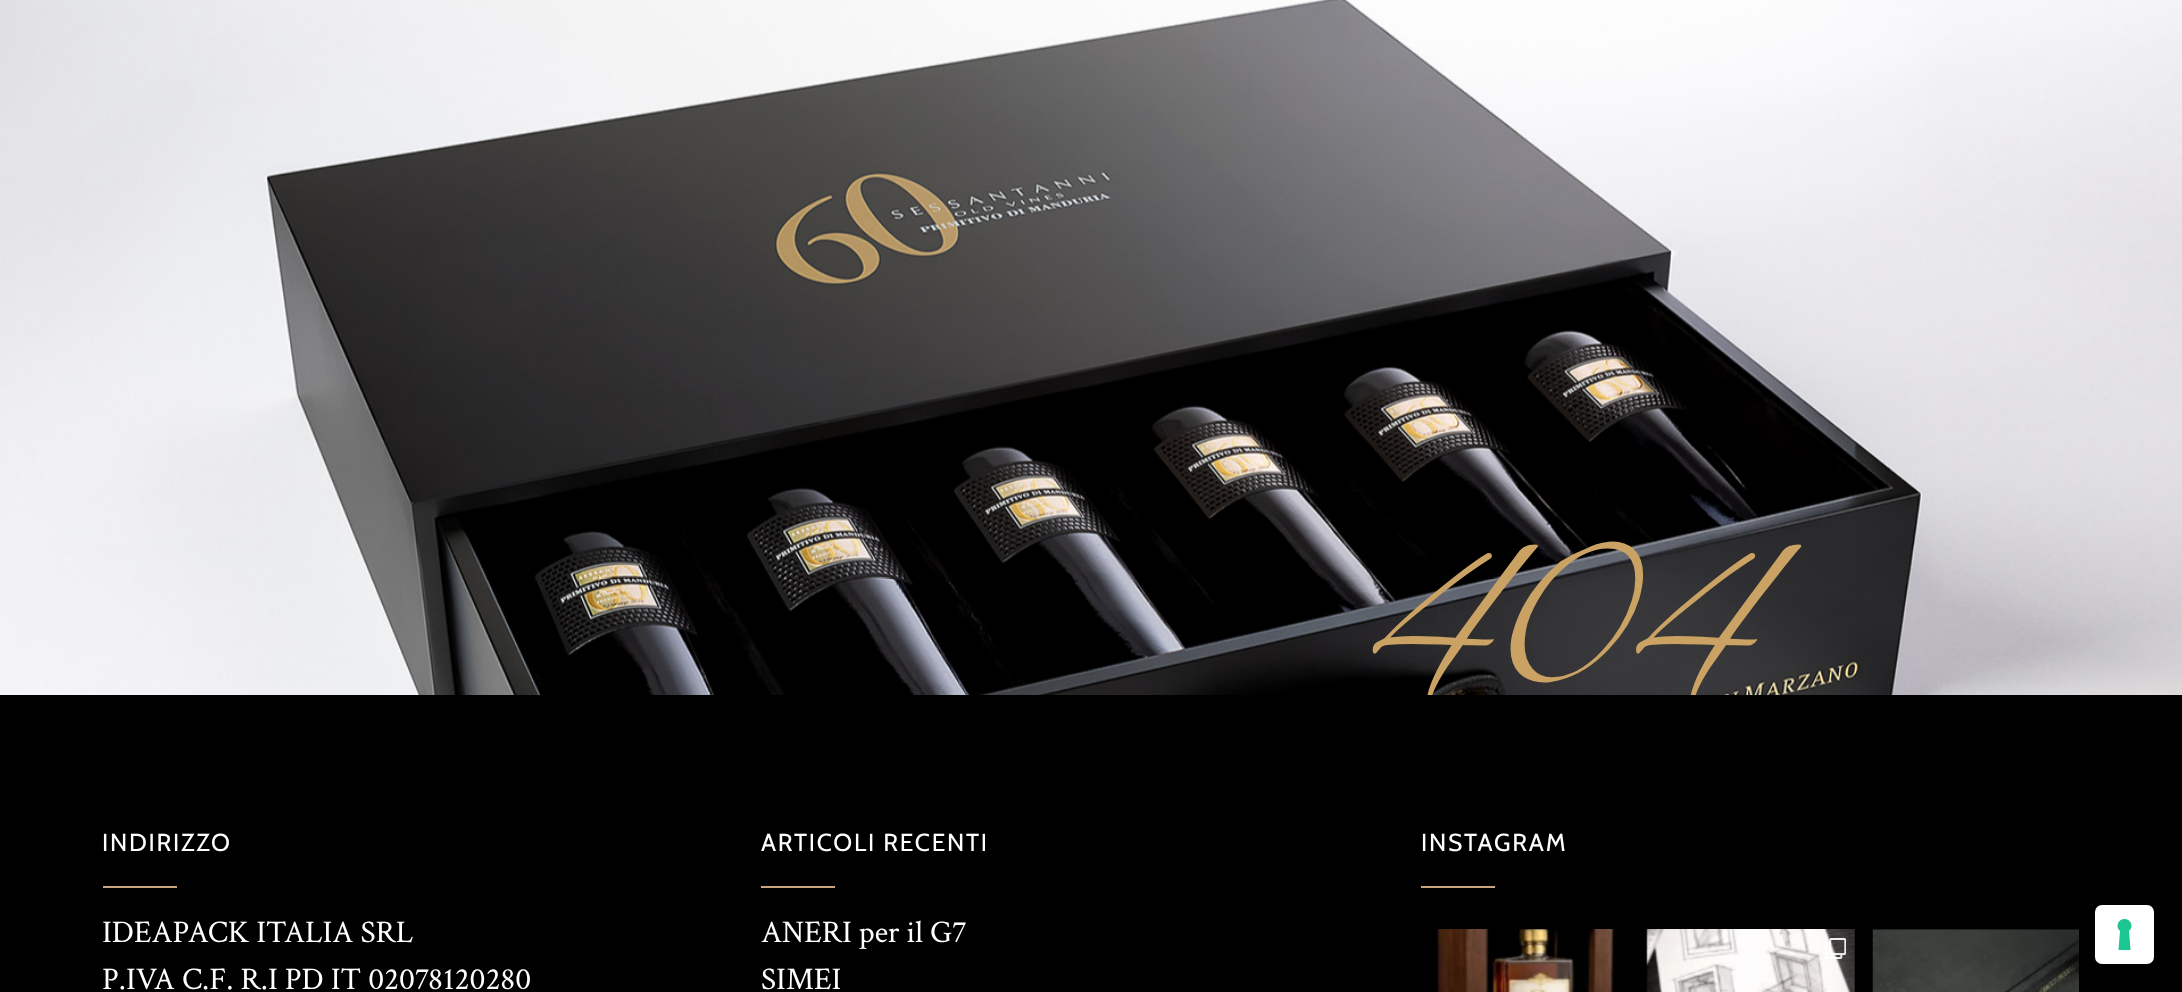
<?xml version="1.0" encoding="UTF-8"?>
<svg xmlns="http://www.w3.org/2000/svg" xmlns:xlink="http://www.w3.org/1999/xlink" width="2182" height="992">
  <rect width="100%" height="100%" fill="#ffffff" />
  <image x="0" y="0" width="2182" height="695" xlink:href="image1.png" />
  <text x="1368" y="679" style="font-family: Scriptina; font-size: 262px; fill: #caa264">404</text>
  <rect y="695" width="2182" height="297" fill="#000000" />
  <text x="102" y="851" style="font-family: Cabin; font-size: 24.5px; letter-spacing: 1.75px; fill: #ffffff">INDIRIZZO</text>
  <rect x="103" y="886" width="74" height="2" fill="#c9a482" />
  <text x="102" y="942" style="font-family: Crimson Text; font-size: 31.5px; fill: #ffffff">IDEAPACK ITALIA SRL</text>
  <text x="102" y="989" style="font-family: Crimson Text; font-size: 31.5px; fill: #ffffff">P.IVA C.F. R.I PD IT 02078120280</text>
  <text x="761" y="851" style="font-family: Cabin; font-size: 24.5px; letter-spacing: 1.75px; fill: #ffffff">ARTICOLI RECENTI</text>
  <rect x="761" y="886" width="74" height="2" fill="#c9a482" />
  <text x="761" y="942" style="font-family: Crimson Text; font-size: 31.5px; fill: #ffffff">ANERI per il G7</text>
  <text x="761" y="989" style="font-family: Crimson Text; font-size: 31.5px; fill: #ffffff">SIMEI</text>
  <text x="1421" y="851" style="font-family: Cabin; font-size: 24.5px; letter-spacing: 1.75px; fill: #ffffff">INSTAGRAM</text>
  <rect x="1421" y="886" width="74" height="2" fill="#c9a482" />
  <image x="1437" y="929" width="178" height="63" xlink:href="image2.png" />
  <image x="1646" y="929" width="209" height="63" xlink:href="image3.png" />
  <image x="1825" y="938" width="21" height="21" xlink:href="image4.png" />
  <image x="1872" y="929" width="207" height="63" xlink:href="image5.png" />
  <rect x="2095" y="905" width="59" height="59" rx="7" fill="#ffffff" />
  <path d="M 2124.5 919 c 6.5 0 9.5 8 4.5 12 l 1.5 19 h -12 l 1.5 -19 c -5 -4 -2 -12 4.5 -12 z" fill="#1cc691" fill-rule="evenodd" />
</svg>
